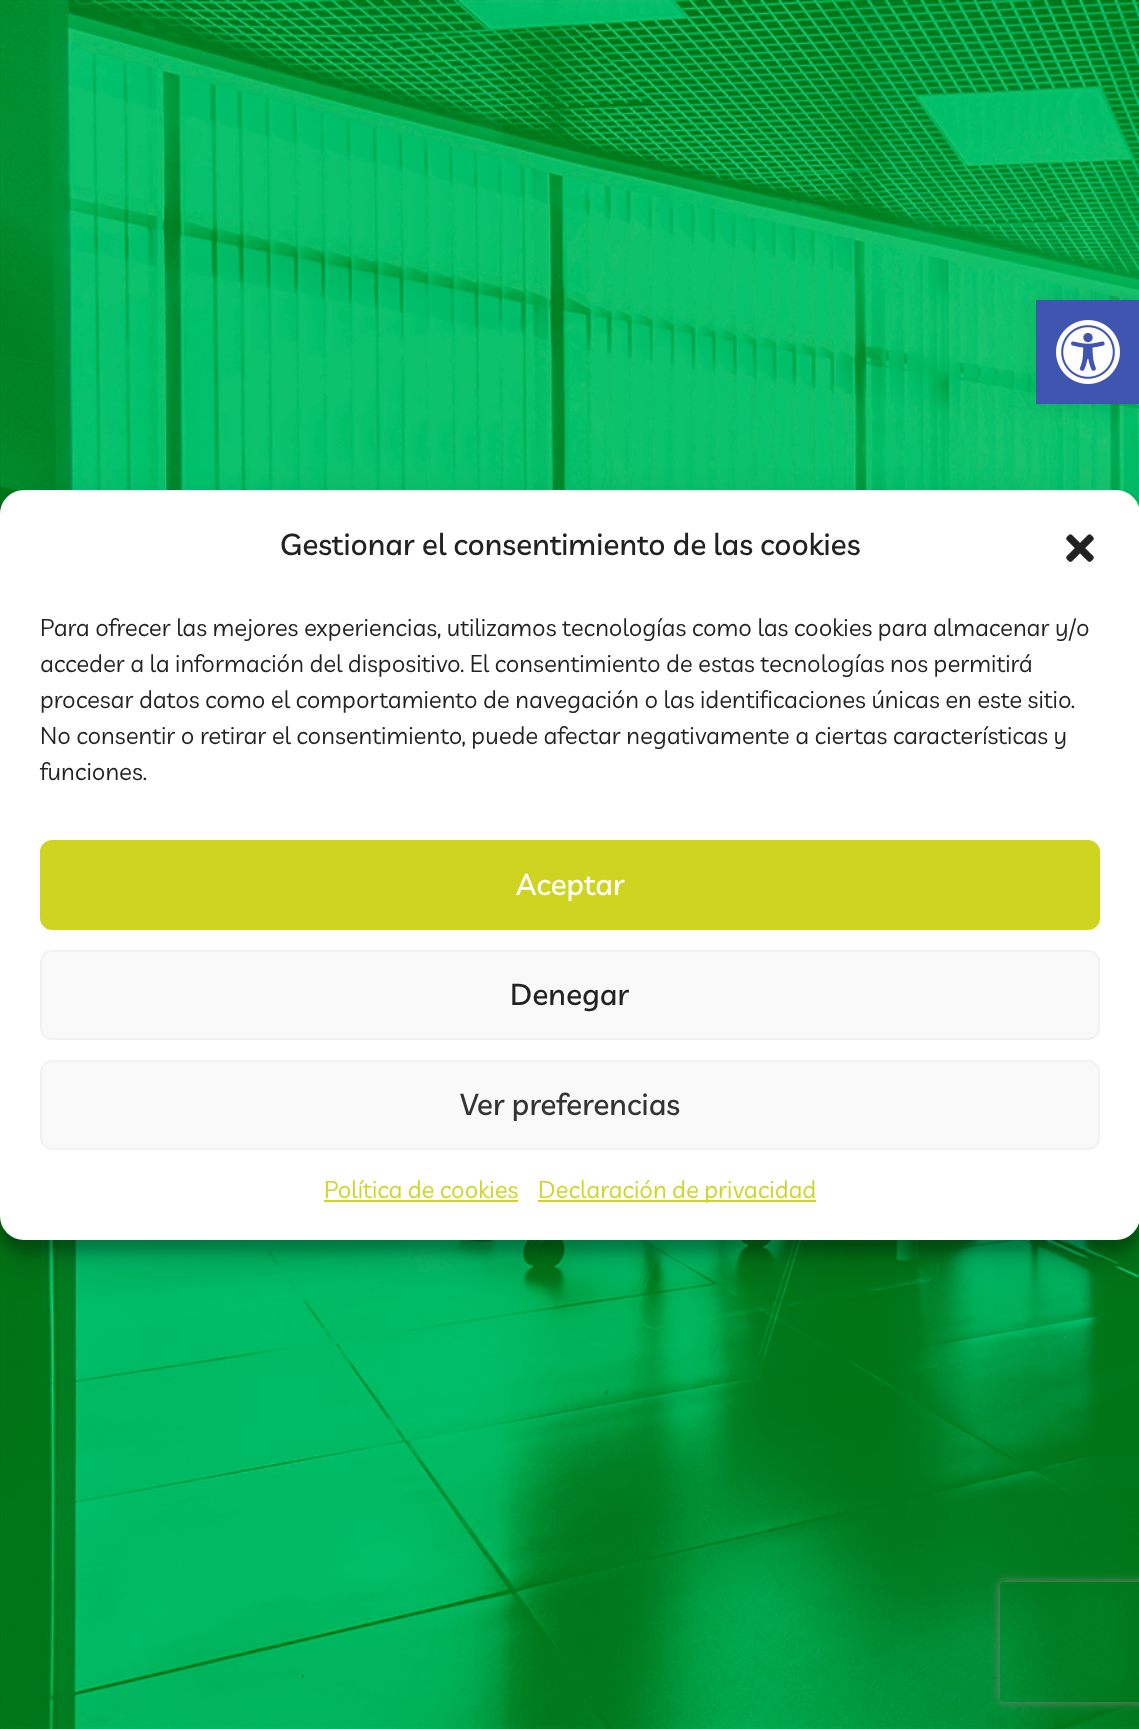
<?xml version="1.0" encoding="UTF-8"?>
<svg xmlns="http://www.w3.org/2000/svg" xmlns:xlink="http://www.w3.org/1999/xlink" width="1139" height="1729">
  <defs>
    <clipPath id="clip1"><path d="M 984 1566 h 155 v 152 h -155 z m 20 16 h 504 c 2 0 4 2 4 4 v 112 c 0 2 -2 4 -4 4 h -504 c -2 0 -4 -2 -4 -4 v -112 c 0 -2 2 -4 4 -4 z" clip-rule="evenodd" /></clipPath>
  </defs>
  <rect width="100%" height="100%" fill="#ffffff" />
  <image x="0" y="0" width="1139" height="1729" xlink:href="image1.png" />
  <rect x="1036" y="300" width="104" height="104" fill="#000000" fill-opacity="0.1" filter="blur(10px)" />
  <rect x="1036" y="300" width="103" height="104" fill="#4054b2" />
  <image x="1056" y="320" width="64" height="64" xlink:href="image2.png" />
  <rect y="502" width="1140" height="750" rx="24" fill="#000000" fill-opacity="0.23" filter="blur(6px)" />
  <rect y="510" width="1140" height="750" rx="24" fill="#000000" fill-opacity="0.19" filter="blur(20px)" />
  <rect y="490" width="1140" height="750" rx="24" fill="#ffffff" />
  <image x="1066" y="534" width="28" height="28" xlink:href="image3.png" />
  <rect x="41" y="841" width="1058" height="88" rx="11" fill="#cfd420" stroke="#cfd420" stroke-width="2" />
  <rect x="41" y="951" width="1058" height="88" rx="11" fill="#f9f9f9" stroke="#f2f2f2" stroke-width="2" />
  <rect x="41" y="1061" width="1058" height="88" rx="11" fill="#f9f9f9" stroke="#f2f2f2" stroke-width="2" />
  <rect x="324" y="1200" width="194" height="2" fill="#cfd420" />
  <rect x="538" y="1200" width="278" height="2" fill="#cfd420" />
  <g clip-path="url(#clip1)">
    <rect x="1000" y="1582" width="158" height="120" rx="4" fill="#808080" filter="blur(5px)" />
  </g>
  <text x="280" y="555" style="font-family: Livvic; font-size: 30px; font-weight: 500; fill: #222222">Gestionar el consentimiento de las cookies</text>
  <text x="40" y="636" style="font-family: Livvic; font-size: 24px; fill: #222222">Para ofrecer las mejores experiencias, utilizamos tecnologías como las cookies para almacenar y/o</text>
  <text x="40" y="672" style="font-family: Livvic; font-size: 24px; fill: #222222">acceder a la información del dispositivo. El consentimiento de estas tecnologías nos permitirá</text>
  <text x="40" y="708" style="font-family: Livvic; font-size: 24px; fill: #222222">procesar datos como el comportamiento de navegación o las identificaciones únicas en este sitio.</text>
  <text x="40" y="744" style="font-family: Livvic; font-size: 24px; fill: #222222">No consentir o retirar el consentimiento, puede afectar negativamente a ciertas características y</text>
  <text x="40" y="780" style="font-family: Livvic; font-size: 24px; fill: #222222">funciones.</text>
  <text x="516" y="895" style="font-family: Livvic; font-size: 30px; font-weight: 500; fill: #ffffff">Aceptar</text>
  <text x="510" y="1005" style="font-family: Livvic; font-size: 30px; font-weight: 500; fill: #222222">Denegar</text>
  <text x="460" y="1115" style="font-family: Livvic; font-size: 30px; font-weight: 500; fill: #333333">Ver preferencias</text>
  <text x="324" y="1198" style="font-family: Livvic; font-size: 24px; fill: #cfd420">Política de cookies</text>
  <text x="538" y="1198" style="font-family: Livvic; font-size: 24px; fill: #cfd420">Declaración de privacidad</text>
</svg>
